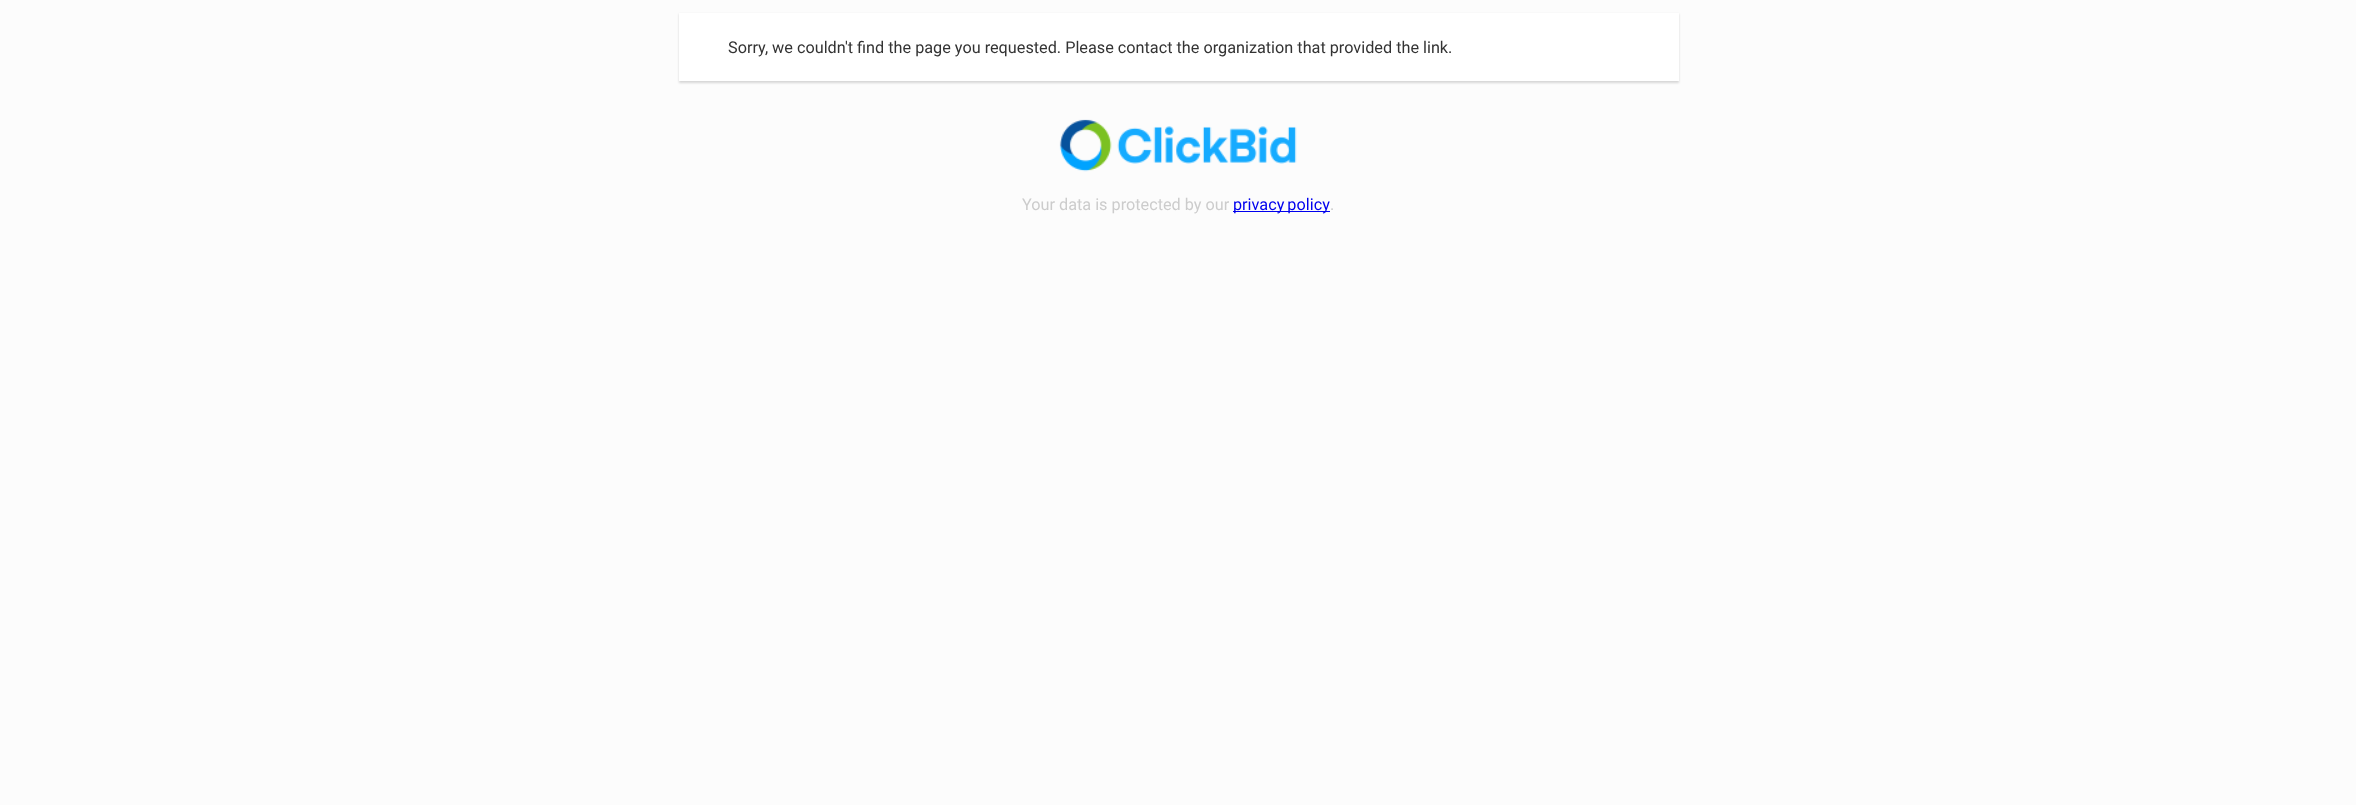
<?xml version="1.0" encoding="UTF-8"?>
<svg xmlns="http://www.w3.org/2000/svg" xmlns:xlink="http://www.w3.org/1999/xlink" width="2356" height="805">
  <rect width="100%" height="100%" fill="#fcfcfc" />
  <rect x="679" y="14" width="1000" height="69" fill="#000000" fill-opacity="0.15" filter="blur(1px)" />
  <rect x="679" y="13" width="1000" height="68" fill="#ffffff" />
  <image x="1059" y="119" width="238" height="53" xlink:href="image1.png" />
  <rect x="1233" y="211" width="97" height="1" fill="#0000ee" />
  <text x="728" y="53" style="font-family: Roboto; font-size: 16.25px; fill: #333333">Sorry, we couldn't find the page you requested. Please contact the organization that provided the link.</text>
  <text x="1022" y="210" style="font-family: Roboto; font-size: 16.25px; fill: #cccccc">Your data is protected by our</text>
  <text x="1233" y="210" word-spacing="-1" style="font-family: Roboto; font-size: 16.25px; fill: #0000ee">privacy policy</text>
  <text x="1330" y="210" style="font-family: Roboto; font-size: 16.25px; fill: #cccccc">.</text>
</svg>
